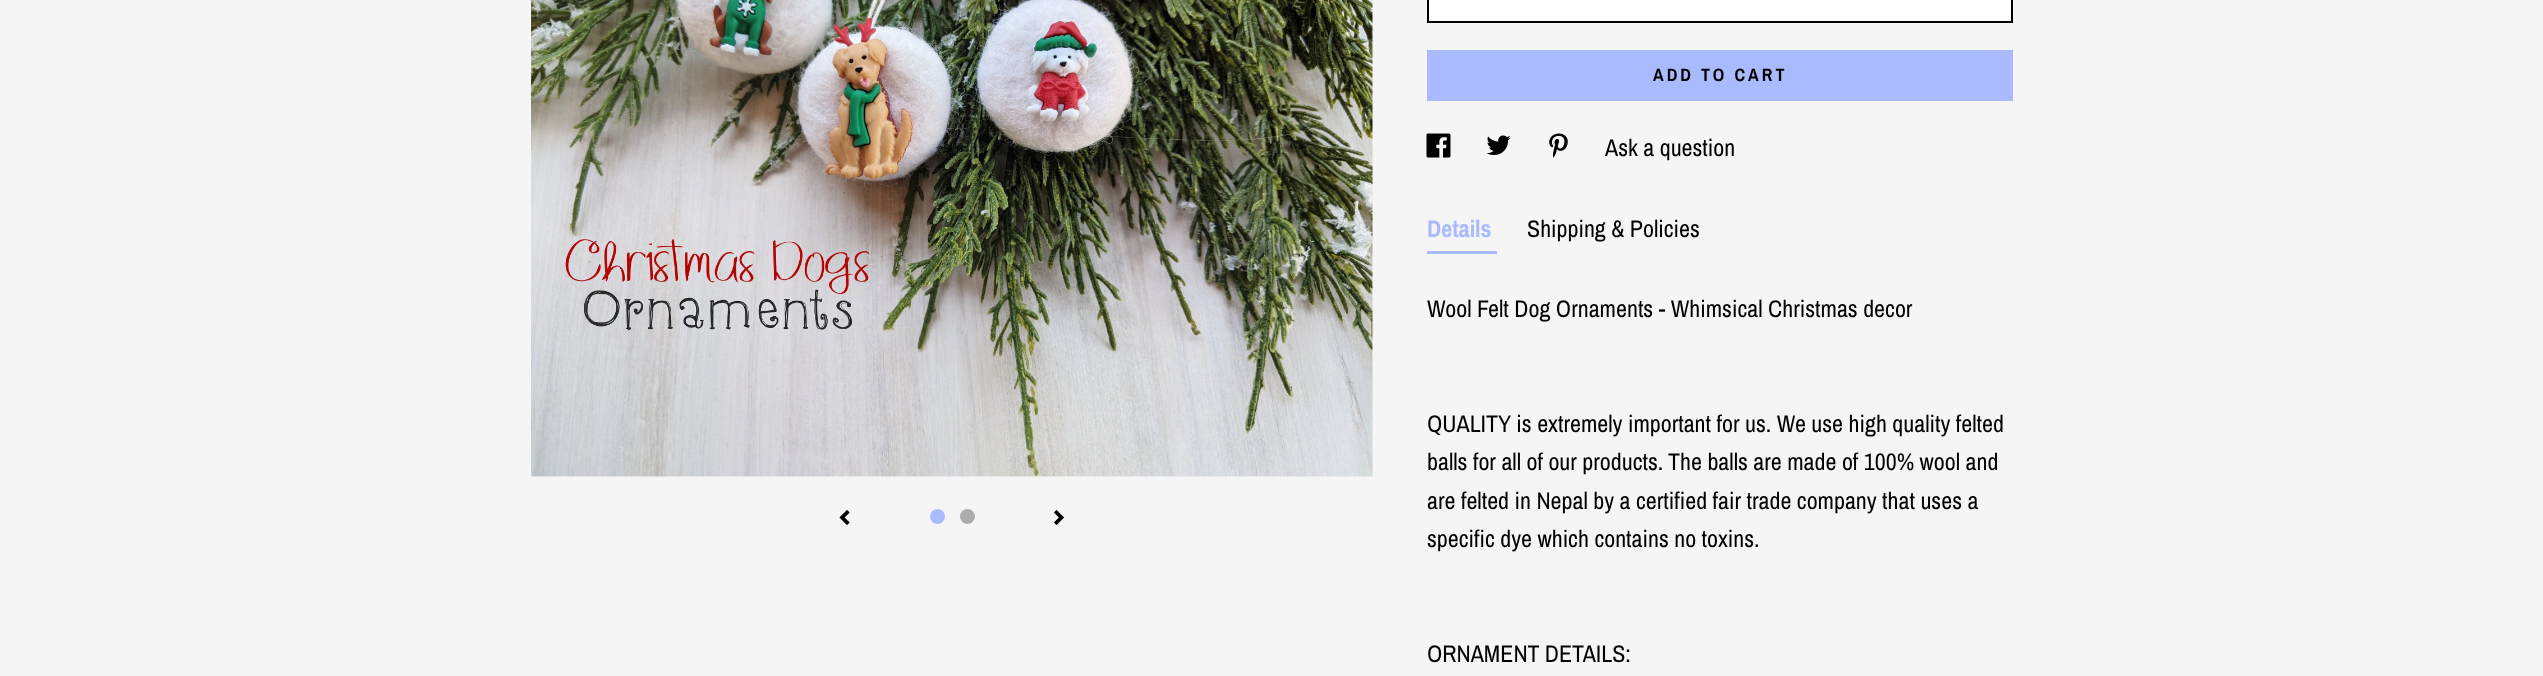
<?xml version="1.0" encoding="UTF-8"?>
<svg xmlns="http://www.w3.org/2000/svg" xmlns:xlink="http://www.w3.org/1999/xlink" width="2543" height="676">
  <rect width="100%" height="100%" fill="#f5f5f5" />
  <image x="531" y="0" width="842" height="477" xlink:href="image1.png" />
  <image x="839" y="510" width="11" height="15" xlink:href="image2.png" />
  <circle cx="937.5" cy="516.5" r="7.5" fill="#a9baff" />
  <circle cx="967.5" cy="516.5" r="7.5" fill="#acacac" />
  <image x="1054" y="510" width="10" height="15" xlink:href="image3.png" />
  <rect x="1428" y="-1" width="584" height="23" fill="#ffffff" stroke="#000000" stroke-width="2" />
  <rect x="1427" y="50" width="586" height="51" fill="#a9baff" />
  <image x="1426" y="133" width="25" height="25" xlink:href="image4.png" />
  <image x="1486" y="135" width="25" height="20" xlink:href="image5.png" />
  <image x="1549" y="133" width="19" height="25" xlink:href="image6.png" />
  <rect x="1427" y="251" width="70" height="3" fill="#a9baff" />
  <text x="1653" y="81" style="font-family: Archivo Narrow; font-size: 18px; font-weight: bold; letter-spacing: 3px; fill: #000000">ADD TO CART</text>
  <text x="1605" y="156" style="font-family: Archivo Narrow; font-size: 24px; fill: #000000">Ask a question</text>
  <text x="1427" y="237" style="font-family: Archivo Narrow; font-size: 24px; font-weight: bold; fill: #a9baff">Details</text>
  <text x="1527" y="237" style="font-family: Archivo Narrow; font-size: 24px; fill: #000000">Shipping &amp; Policies</text>
  <text x="1427" y="317" style="font-family: Archivo Narrow; font-size: 24px; fill: #000000">Wool Felt Dog Ornaments - Whimsical Christmas decor</text>
  <text x="1427" y="432" style="font-family: Archivo Narrow; font-size: 24px; fill: #000000">QUALITY is extremely important for us. We use high quality felted</text>
  <text x="1427" y="470" style="font-family: Archivo Narrow; font-size: 24px; fill: #000000">balls for all of our products.</text>
  <text x="1668" y="470" style="font-family: Archivo Narrow; font-size: 24px; fill: #000000">The balls are made of 100% wool and</text>
  <text x="1427" y="509" style="font-family: Archivo Narrow; font-size: 24px; fill: #000000">are felted in Nepal by a certified fair trade company that uses a</text>
  <text x="1427" y="547" style="font-family: Archivo Narrow; font-size: 24px; fill: #000000">specific dye which contains no toxins.</text>
  <text x="1427" y="662" style="font-family: Archivo Narrow; font-size: 24px; fill: #000000">ORNAMENT DETAILS:</text>
</svg>
